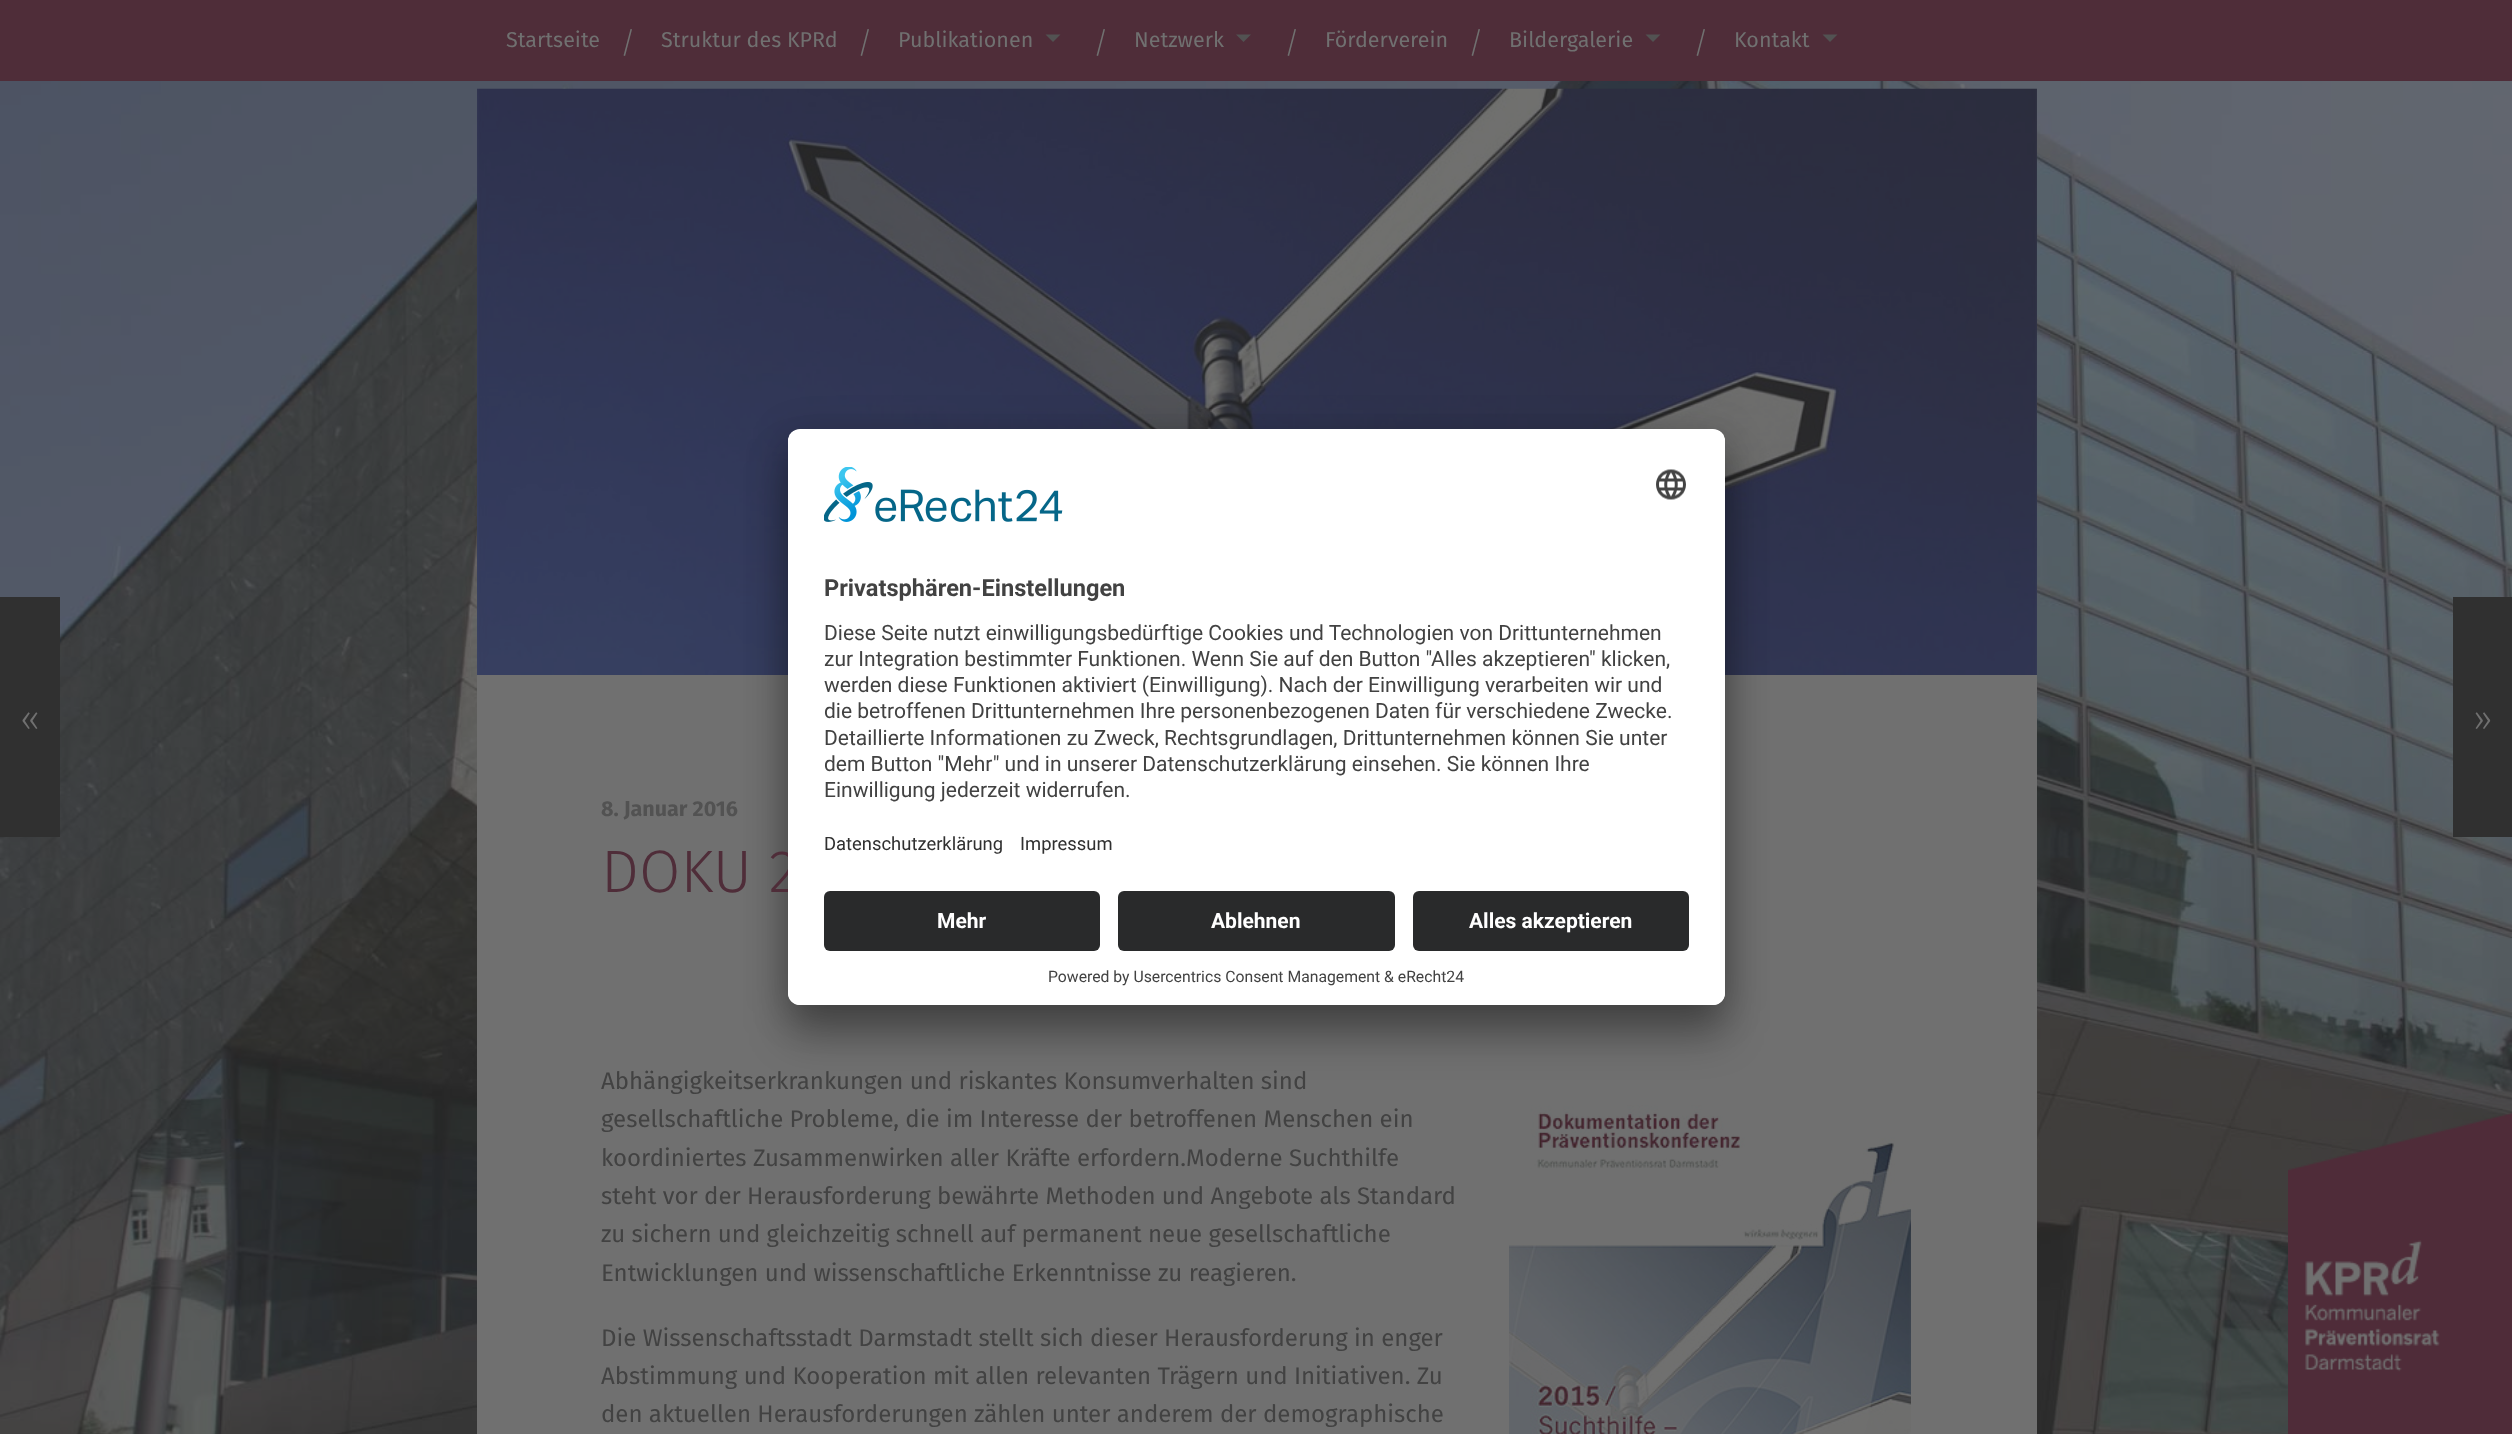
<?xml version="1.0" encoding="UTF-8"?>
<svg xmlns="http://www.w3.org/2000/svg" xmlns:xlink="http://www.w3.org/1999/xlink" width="2512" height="1434">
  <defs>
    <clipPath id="clip1"><rect x="788" y="429" width="937" height="576" rx="12" /></clipPath>
    <clipPath id="clip2"><path d="M 800 429 h 913 c 6.5 0 12 5.5 12 12 v 438 h -937 v -438 c 0 -6.5 5.5 -12 12 -12 z" /></clipPath>
  </defs>
  <rect width="100%" height="100%" fill="#ffffff" />
  <rect width="2512" height="81" fill="#4f2d39" />
  <path d="M 1045.5 34.5 h 15 l -7.5 7.5 z" fill="#525252" />
  <path d="M 1236 34.5 h 15 l -7.5 7.5 z" fill="#525252" />
  <path d="M 1645.5 34.5 h 15 l -7.5 7.5 z" fill="#525252" />
  <path d="M 1822.5 34.5 h 15 l -7.5 7.5 z" fill="#525252" />
  <image x="0" y="81" width="2512" height="1353" xlink:href="image1.png" />
  <rect x="477" y="675" width="1560" height="759" fill="#707070" />
  <image x="477" y="88" width="1560" height="587" xlink:href="image4.png" />
  <rect x="788" y="459" width="937" height="576" rx="12" fill="#000000" fill-opacity="0.3" filter="blur(21px)" />
  <rect x="788" y="437" width="937" height="576" rx="12" fill="#000000" fill-opacity="0.22" filter="blur(19.5px)" />
  <rect y="597" width="60" height="240" fill="#303030" />
  <rect x="2453" y="597" width="59" height="240" fill="#303030" />
  <image x="1509" y="1105" width="402" height="329" xlink:href="image5.png" />
  <image x="2288" y="1112" width="224" height="322" xlink:href="image6.png" />
  <text x="506" y="47" style="font-family: Fira Sans; font-size: 21.5px; fill: #707070">Startseite</text>
  <text x="620" y="53" style="font-family: Fira Sans; font-size: 30px; font-weight: 300; fill: #707070">/</text>
  <text x="661" y="47" style="font-family: Fira Sans; font-size: 21.5px; fill: #707070">Struktur des KPRd</text>
  <text x="857" y="53" style="font-family: Fira Sans; font-size: 30px; font-weight: 300; fill: #707070">/</text>
  <text x="898" y="47" style="font-family: Fira Sans; font-size: 21.5px; fill: #707070">Publikationen</text>
  <text x="1093" y="53" style="font-family: Fira Sans; font-size: 30px; font-weight: 300; fill: #707070">/</text>
  <text x="1134" y="47" style="font-family: Fira Sans; font-size: 21.5px; fill: #707070">Netzwerk</text>
  <text x="1284" y="53" style="font-family: Fira Sans; font-size: 30px; font-weight: 300; fill: #707070">/</text>
  <text x="1325" y="47" style="font-family: Fira Sans; font-size: 21.5px; fill: #707070">Förderverein</text>
  <text x="1468" y="53" style="font-family: Fira Sans; font-size: 30px; font-weight: 300; fill: #707070">/</text>
  <text x="1509" y="47" style="font-family: Fira Sans; font-size: 21.5px; fill: #707070">Bildergalerie</text>
  <text x="1693" y="53" style="font-family: Fira Sans; font-size: 30px; font-weight: 300; fill: #707070">/</text>
  <text x="1734" y="47" style="font-family: Fira Sans; font-size: 21.5px; fill: #707070">Kontakt</text>
  <text x="20" y="731" style="font-family: Fira Sans; font-size: 36px; font-weight: 300; fill: #707070">«</text>
  <text x="2473" y="731" style="font-family: Fira Sans; font-size: 36px; font-weight: 300; fill: #707070">»</text>
  <text x="601" y="816" style="font-family: Fira Sans; font-size: 21.5px; font-weight: bold; fill: #525252">8. Januar 2016</text>
  <text x="601" y="892" style="font-family: Fira Sans; font-size: 60px; font-weight: 300; fill: #4f2d39">DOKU 2</text>
  <rect x="788" y="429" width="937" height="576" rx="12" fill="#ffffff" />
  <g clip-path="url(#clip1)">
    <g clip-path="url(#clip2)">
      <rect x="788" y="431" width="937" height="448" fill="#ffffff" />
    </g>
  </g>
  <image x="1656" y="469" width="30" height="31" xlink:href="image3.png" />
  <text x="1020" y="850" style="font-family: Roboto; font-size: 18.4px; fill: #303030">Impressum</text>
  <text x="824" y="850" style="font-family: Roboto; font-size: 18.4px; fill: #303030">Datenschutzerklärung</text>
  <image x="824" y="467" width="239" height="55" xlink:href="image2.png" />
  <text x="824" y="797" style="font-family: Roboto; font-size: 21px; fill: #424242">Einwilligung jederzeit widerrufen.</text>
  <text x="824" y="771" style="font-family: Roboto; font-size: 21px; fill: #424242">dem Button "Mehr" und in unserer Datenschutzerklärung einsehen. Sie können Ihre</text>
  <text x="824" y="745" style="font-family: Roboto; font-size: 21px; fill: #424242">Detaillierte Informationen zu Zweck, Rechtsgrundlagen, Drittunternehmen können Sie unter</text>
  <text x="824" y="718" style="font-family: Roboto; font-size: 21px; fill: #424242">die betroffenen Drittunternehmen Ihre personenbezogenen Daten für verschiedene Zwecke.</text>
  <text x="824" y="692" style="font-family: Roboto; font-size: 21px; fill: #424242">werden diese Funktionen aktiviert (Einwilligung). Nach der Einwilligung verarbeiten wir und</text>
  <text x="824" y="666" style="font-family: Roboto; font-size: 21px; fill: #424242">zur Integration bestimmter Funktionen. Wenn Sie auf den Button "Alles akzeptieren" klicken,</text>
  <text x="824" y="640" style="font-family: Roboto; font-size: 21px; fill: #424242">Diese Seite nutzt einwilligungsbedürftige Cookies und Technologien von Drittunternehmen</text>
  <text x="824" y="596" style="font-family: Roboto; font-size: 23.6px; font-weight: bold; fill: #424242">Privatsphären-Einstellungen</text>
  <path d="M 788 879 h 937 v 114 c 0 6.5 -5.5 12 -12 12 h -913 c -6.5 0 -12 -5.5 -12 -12 z" fill="#ffffff" />
  <text x="1048" y="982" style="font-family: Roboto; font-size: 15.75px; fill: #424242">Powered by Usercentrics Consent Management &amp; eRecht24</text>
  <rect x="1413" y="891" width="276" height="60" rx="6" fill="#292a2b" />
  <text x="1469" y="928" style="font-family: Roboto; font-size: 21px; font-weight: bold; fill: #ffffff">Alles akzeptieren</text>
  <rect x="1118" y="891" width="277" height="60" rx="6" fill="#292a2b" />
  <text x="1211" y="928" style="font-family: Roboto; font-size: 21px; font-weight: bold; fill: #ffffff">Ablehnen</text>
  <rect x="824" y="891" width="276" height="60" rx="6" fill="#292a2b" />
  <text x="937" y="928" style="font-family: Roboto; font-size: 21px; font-weight: bold; fill: #ffffff">Mehr</text>
  <text x="601" y="1089" style="font-family: Fira Sans; font-size: 24px; fill: #424242">Abhängigkeitserkrankungen und riskantes Konsumverhalten sind</text>
  <text x="601" y="1127" style="font-family: Fira Sans; font-size: 24px; fill: #424242">gesellschaftliche Probleme, die im Interesse der betroffenen Menschen ein</text>
  <text x="601" y="1166" style="font-family: Fira Sans; font-size: 24px; fill: #424242">koordiniertes Zusammenwirken aller Kräfte erfordern.Moderne Suchthilfe</text>
  <text x="601" y="1204" style="font-family: Fira Sans; font-size: 24px; fill: #424242">steht vor der Herausforderung bewährte Methoden und Angebote als Standard</text>
  <text x="601" y="1242" style="font-family: Fira Sans; font-size: 24px; fill: #424242">zu sichern und gleichzeitig schnell auf permanent neue gesellschaftliche</text>
  <text x="601" y="1281" style="font-family: Fira Sans; font-size: 24px; fill: #424242">Entwicklungen und wissenschaftliche Erkenntnisse zu reagieren.</text>
  <text x="601" y="1346" style="font-family: Fira Sans; font-size: 24px; fill: #424242">Die Wissenschaftsstadt Darmstadt stellt sich dieser Herausforderung in enger</text>
  <text x="601" y="1384" style="font-family: Fira Sans; font-size: 24px; fill: #424242">Abstimmung und Kooperation mit allen relevanten Trägern und Initiativen. Zu</text>
  <text x="601" y="1422" style="font-family: Fira Sans; font-size: 24px; fill: #424242">den aktuellen Herausforderungen zählen unter anderem der demographische</text>
</svg>
